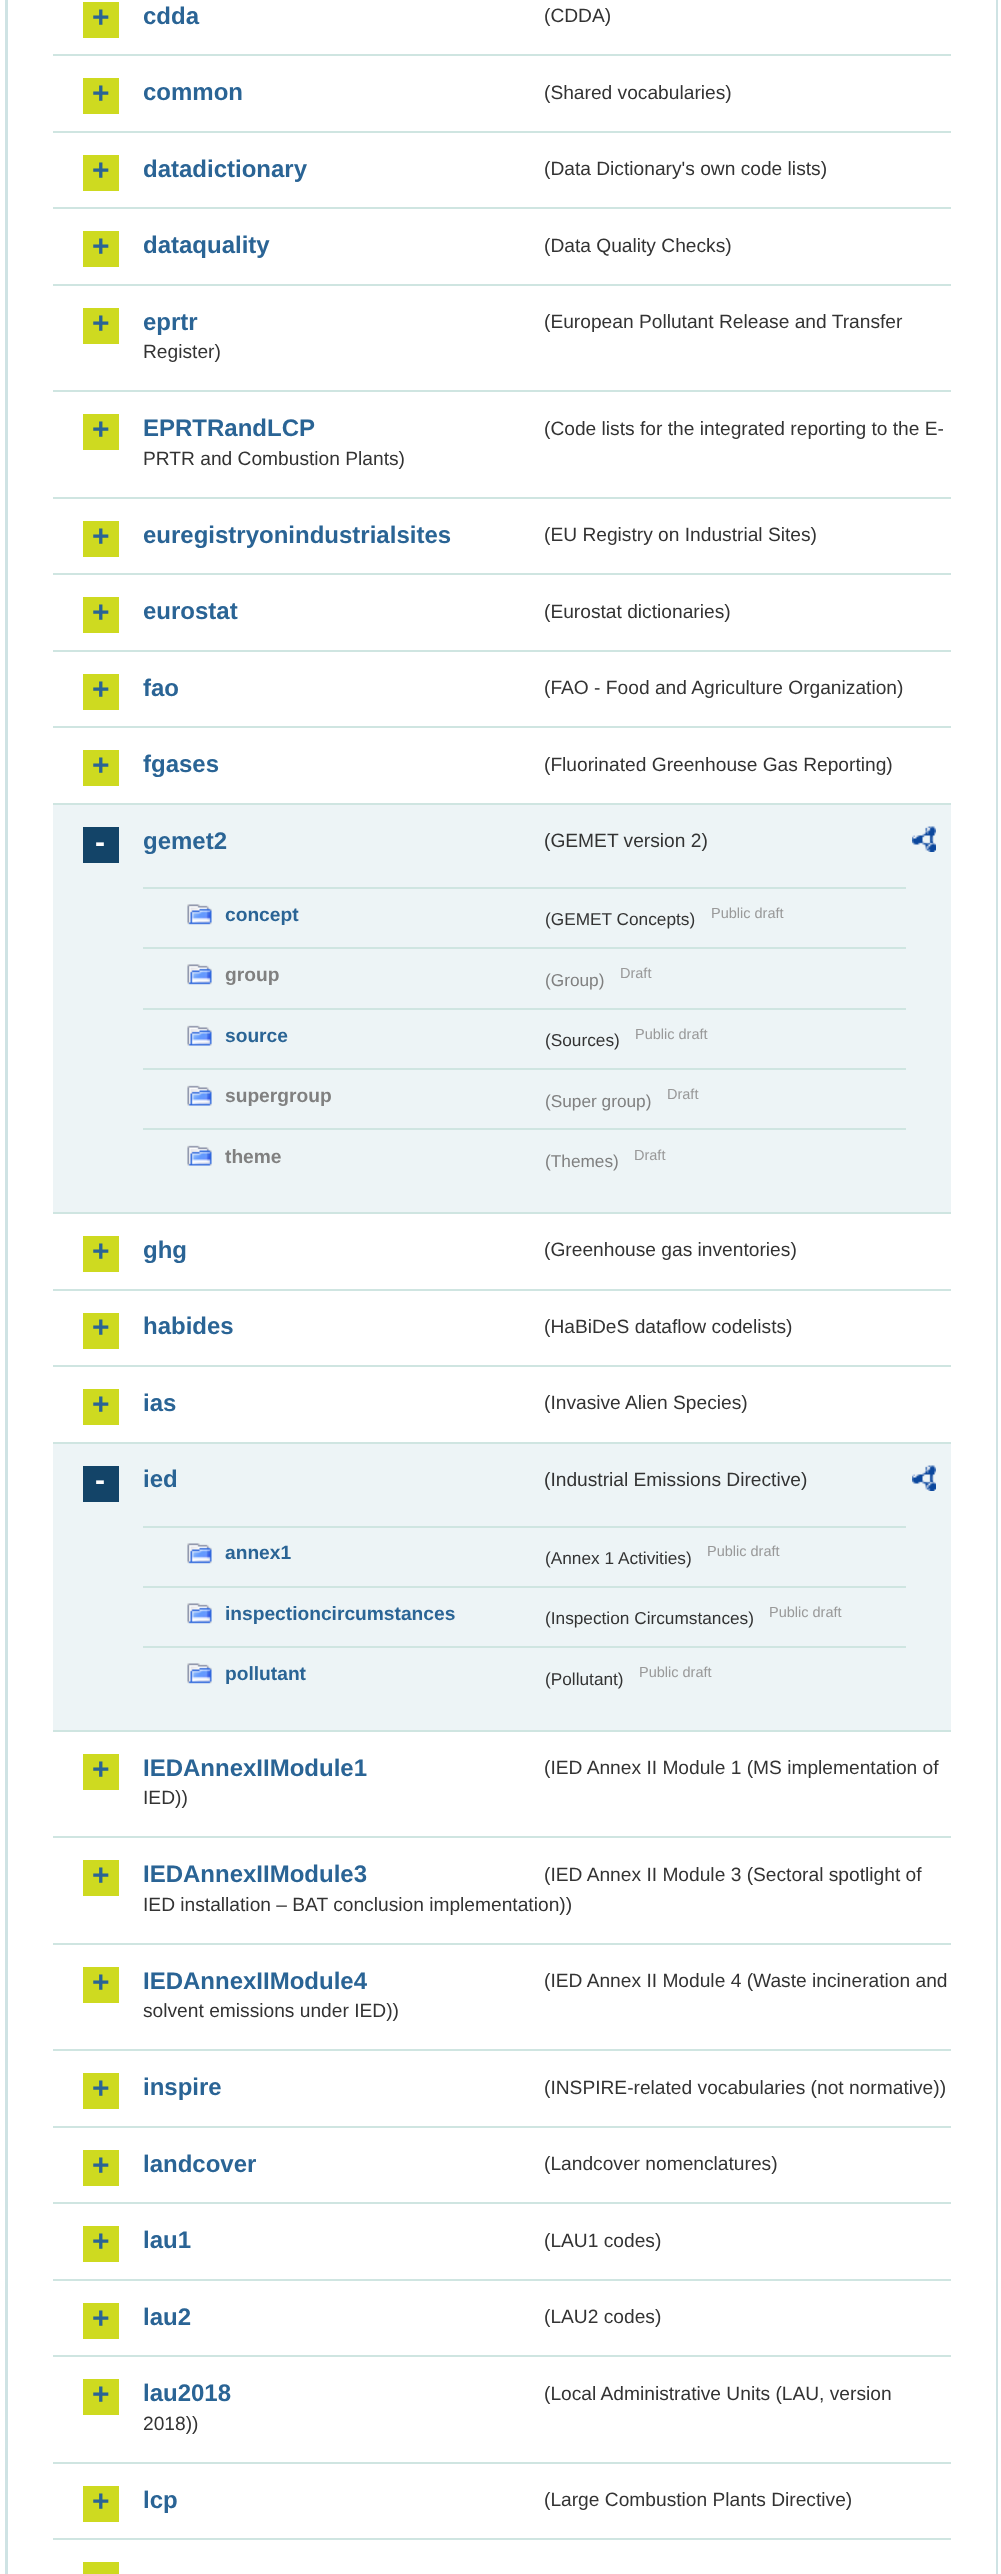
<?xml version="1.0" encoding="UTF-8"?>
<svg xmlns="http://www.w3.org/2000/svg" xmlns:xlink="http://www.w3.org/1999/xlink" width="1001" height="2574">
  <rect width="100%" height="100%" fill="#ffffff" />
  <rect x="996" width="2" height="2574" fill="#cfe3e4" />
  <rect x="5" width="3" height="2574" fill="#cfe3e4" />
  <rect x="83" y="2" width="36" height="36" fill="#ceda20" />
  <rect x="53" y="54" width="898" height="2" fill="#cfe5e1" />
  <rect x="83" y="78" width="36" height="36" fill="#ceda20" />
  <rect x="53" y="131" width="898" height="2" fill="#cfe5e1" />
  <rect x="83" y="155" width="36" height="36" fill="#ceda20" />
  <rect x="53" y="207" width="898" height="2" fill="#cfe5e1" />
  <rect x="83" y="231" width="36" height="36" fill="#ceda20" />
  <rect x="53" y="284" width="898" height="2" fill="#cfe5e1" />
  <rect x="83" y="308" width="36" height="36" fill="#ceda20" />
  <rect x="53" y="390" width="898" height="2" fill="#cfe5e1" />
  <rect x="83" y="414" width="36" height="36" fill="#ceda20" />
  <rect x="53" y="497" width="898" height="2" fill="#cfe5e1" />
  <rect x="83" y="521" width="36" height="36" fill="#ceda20" />
  <rect x="53" y="573" width="898" height="2" fill="#cfe5e1" />
  <rect x="83" y="597" width="36" height="36" fill="#ceda20" />
  <rect x="53" y="650" width="898" height="2" fill="#cfe5e1" />
  <rect x="83" y="674" width="36" height="36" fill="#ceda20" />
  <rect x="53" y="726" width="898" height="2" fill="#cfe5e1" />
  <rect x="83" y="750" width="36" height="36" fill="#ceda20" />
  <rect x="53" y="805" width="898" height="407" fill="#edf4f6" />
  <rect x="53" y="803" width="898" height="2" fill="#cfe5e1" />
  <rect x="83" y="827" width="36" height="36" fill="#134468" />
  <image x="912" y="826" width="24" height="26" xlink:href="image1.png" />
  <rect x="143" y="887" width="763" height="2" fill="#cfe5e1" />
  <image x="187" y="904" width="25" height="21" xlink:href="image2.png" />
  <rect x="143" y="947" width="763" height="2" fill="#cfe5e1" />
  <image x="187" y="964" width="25" height="21" xlink:href="image2.png" />
  <rect x="143" y="1008" width="763" height="2" fill="#cfe5e1" />
  <image x="187" y="1025" width="25" height="21" xlink:href="image3.png" />
  <rect x="143" y="1068" width="763" height="2" fill="#cfe5e1" />
  <image x="187" y="1085" width="25" height="21" xlink:href="image3.png" />
  <rect x="143" y="1128" width="763" height="2" fill="#cfe5e1" />
  <image x="187" y="1145" width="25" height="21" xlink:href="image3.png" />
  <rect x="53" y="1212" width="898" height="2" fill="#cfe5e1" />
  <rect x="83" y="1236" width="36" height="36" fill="#ceda20" />
  <rect x="53" y="1289" width="898" height="2" fill="#cfe5e1" />
  <rect x="83" y="1313" width="36" height="36" fill="#ceda20" />
  <rect x="53" y="1365" width="898" height="2" fill="#cfe5e1" />
  <rect x="83" y="1389" width="36" height="36" fill="#ceda20" />
  <rect x="53" y="1444" width="898" height="286" fill="#edf4f6" />
  <rect x="53" y="1442" width="898" height="2" fill="#cfe5e1" />
  <rect x="83" y="1466" width="36" height="36" fill="#134468" />
  <image x="912" y="1465" width="24" height="26" xlink:href="image1.png" />
  <rect x="143" y="1526" width="763" height="2" fill="#cfe5e1" />
  <image x="187" y="1543" width="25" height="21" xlink:href="image2.png" />
  <rect x="143" y="1586" width="763" height="2" fill="#cfe5e1" />
  <image x="187" y="1603" width="25" height="21" xlink:href="image2.png" />
  <rect x="143" y="1646" width="763" height="2" fill="#cfe5e1" />
  <image x="187" y="1663" width="25" height="21" xlink:href="image2.png" />
  <rect x="53" y="1730" width="898" height="2" fill="#cfe5e1" />
  <rect x="83" y="1754" width="36" height="36" fill="#ceda20" />
  <rect x="53" y="1836" width="898" height="2" fill="#cfe5e1" />
  <rect x="83" y="1860" width="36" height="36" fill="#ceda20" />
  <rect x="53" y="1943" width="898" height="2" fill="#cfe5e1" />
  <rect x="83" y="1967" width="36" height="36" fill="#ceda20" />
  <rect x="53" y="2049" width="898" height="2" fill="#cfe5e1" />
  <rect x="83" y="2073" width="36" height="36" fill="#ceda20" />
  <rect x="53" y="2126" width="898" height="2" fill="#cfe5e1" />
  <rect x="83" y="2150" width="36" height="36" fill="#ceda20" />
  <rect x="53" y="2202" width="898" height="2" fill="#cfe5e1" />
  <rect x="83" y="2226" width="36" height="36" fill="#ceda20" />
  <rect x="53" y="2279" width="898" height="2" fill="#cfe5e1" />
  <rect x="83" y="2303" width="36" height="36" fill="#ceda20" />
  <rect x="53" y="2355" width="898" height="2" fill="#cfe5e1" />
  <rect x="83" y="2379" width="36" height="36" fill="#ceda20" />
  <rect x="53" y="2462" width="898" height="2" fill="#cfe5e1" />
  <rect x="83" y="2486" width="36" height="36" fill="#ceda20" />
  <rect x="53" y="2538" width="898" height="2" fill="#cfe5e1" />
  <rect x="83" y="2562" width="36" height="12" fill="#ceda20" />
  <text x="92" y="27" style="font-family: Liberation Sans; font-size: 30px; font-weight: bold; fill: #2a6495">+</text>
  <text x="143" y="24" style="font-family: Liberation Sans; font-size: 24px; font-weight: bold; fill: #2a6495">cdda</text>
  <text x="544" y="22" style="font-family: Liberation Sans; font-size: 19.2px; fill: #333333">(CDDA)</text>
  <text x="92" y="103" style="font-family: Liberation Sans; font-size: 30px; font-weight: bold; fill: #2a6495">+</text>
  <text x="143" y="100" style="font-family: Liberation Sans; font-size: 24px; font-weight: bold; fill: #2a6495">common</text>
  <text x="544" y="99" style="font-family: Liberation Sans; font-size: 19.2px; fill: #333333">(Shared vocabularies)</text>
  <text x="92" y="180" style="font-family: Liberation Sans; font-size: 30px; font-weight: bold; fill: #2a6495">+</text>
  <text x="143" y="177" style="font-family: Liberation Sans; font-size: 24px; font-weight: bold; fill: #2a6495">datadictionary</text>
  <text x="544" y="175" style="font-family: Liberation Sans; font-size: 19.2px; fill: #333333">(Data Dictionary's own code lists)</text>
  <text x="92" y="256" style="font-family: Liberation Sans; font-size: 30px; font-weight: bold; fill: #2a6495">+</text>
  <text x="143" y="253" style="font-family: Liberation Sans; font-size: 24px; font-weight: bold; fill: #2a6495">dataquality</text>
  <text x="544" y="252" style="font-family: Liberation Sans; font-size: 19.2px; fill: #333333">(Data Quality Checks)</text>
  <text x="92" y="333" style="font-family: Liberation Sans; font-size: 30px; font-weight: bold; fill: #2a6495">+</text>
  <text x="143" y="330" style="font-family: Liberation Sans; font-size: 24px; font-weight: bold; fill: #2a6495">eprtr</text>
  <text x="544" y="328" style="font-family: Liberation Sans; font-size: 19.2px; fill: #333333">(European Pollutant Release and Transfer</text>
  <text x="143" y="358" style="font-family: Liberation Sans; font-size: 19.2px; fill: #333333">Register)</text>
  <text x="92" y="439" style="font-family: Liberation Sans; font-size: 30px; font-weight: bold; fill: #2a6495">+</text>
  <text x="143" y="436" style="font-family: Liberation Sans; font-size: 24px; font-weight: bold; fill: #2a6495">EPRTRandLCP</text>
  <text x="544" y="435" style="font-family: Liberation Sans; font-size: 19.2px; fill: #333333">(Code lists for the integrated reporting to the E-</text>
  <text x="143" y="465" style="font-family: Liberation Sans; font-size: 19.2px; fill: #333333">PRTR and Combustion Plants)</text>
  <text x="92" y="546" style="font-family: Liberation Sans; font-size: 30px; font-weight: bold; fill: #2a6495">+</text>
  <text x="143" y="543" style="font-family: Liberation Sans; font-size: 24px; font-weight: bold; fill: #2a6495">euregistryonindustrialsites</text>
  <text x="544" y="541" style="font-family: Liberation Sans; font-size: 19.2px; fill: #333333">(EU Registry on Industrial Sites)</text>
  <text x="92" y="622" style="font-family: Liberation Sans; font-size: 30px; font-weight: bold; fill: #2a6495">+</text>
  <text x="143" y="619" style="font-family: Liberation Sans; font-size: 24px; font-weight: bold; fill: #2a6495">eurostat</text>
  <text x="544" y="618" style="font-family: Liberation Sans; font-size: 19.2px; fill: #333333">(Eurostat dictionaries)</text>
  <text x="92" y="699" style="font-family: Liberation Sans; font-size: 30px; font-weight: bold; fill: #2a6495">+</text>
  <text x="143" y="696" style="font-family: Liberation Sans; font-size: 24px; font-weight: bold; fill: #2a6495">fao</text>
  <text x="544" y="694" style="font-family: Liberation Sans; font-size: 19.2px; fill: #333333">(FAO - Food and Agriculture Organization)</text>
  <text x="92" y="775" style="font-family: Liberation Sans; font-size: 30px; font-weight: bold; fill: #2a6495">+</text>
  <text x="143" y="772" style="font-family: Liberation Sans; font-size: 24px; font-weight: bold; fill: #2a6495">fgases</text>
  <text x="544" y="771" style="font-family: Liberation Sans; font-size: 19.2px; fill: #333333">(Fluorinated Greenhouse Gas Reporting)</text>
  <text x="95" y="852" style="font-family: Liberation Sans; font-size: 30px; font-weight: bold; fill: #ffffff">-</text>
  <text x="143" y="849" style="font-family: Liberation Sans; font-size: 24px; font-weight: bold; fill: #2a6495">gemet2</text>
  <text x="544" y="847" style="font-family: Liberation Sans; font-size: 19.2px; fill: #333333">(GEMET version 2)</text>
  <text x="225" y="921" style="font-family: Liberation Sans; font-size: 19.2px; font-weight: bold; fill: #2a6495">concept</text>
  <text x="545" y="925" style="font-family: Liberation Sans; font-size: 17.25px; fill: #333333">(GEMET Concepts)</text>
  <text x="711" y="918" style="font-family: Liberation Sans; font-size: 14.5px; fill: #999999">Public draft</text>
  <text x="225" y="981" style="font-family: Liberation Sans; font-size: 19.2px; font-weight: bold; fill: #808080">group</text>
  <text x="545" y="986" style="font-family: Liberation Sans; font-size: 17.25px; fill: #808080">(Group)</text>
  <text x="620" y="978" style="font-family: Liberation Sans; font-size: 14.5px; fill: #999999">Draft</text>
  <text x="225" y="1042" style="font-family: Liberation Sans; font-size: 19.2px; font-weight: bold; fill: #2a6495">source</text>
  <text x="545" y="1046" style="font-family: Liberation Sans; font-size: 17.25px; fill: #333333">(Sources)</text>
  <text x="635" y="1039" style="font-family: Liberation Sans; font-size: 14.5px; fill: #999999">Public draft</text>
  <text x="225" y="1102" style="font-family: Liberation Sans; font-size: 19.2px; font-weight: bold; fill: #808080">supergroup</text>
  <text x="545" y="1107" style="font-family: Liberation Sans; font-size: 17.25px; fill: #808080">(Super group)</text>
  <text x="667" y="1099" style="font-family: Liberation Sans; font-size: 14.5px; fill: #999999">Draft</text>
  <text x="225" y="1163" style="font-family: Liberation Sans; font-size: 19.2px; font-weight: bold; fill: #808080">theme</text>
  <text x="545" y="1167" style="font-family: Liberation Sans; font-size: 17.25px; fill: #808080">(Themes)</text>
  <text x="634" y="1160" style="font-family: Liberation Sans; font-size: 14.5px; fill: #999999">Draft</text>
  <text x="92" y="1261" style="font-family: Liberation Sans; font-size: 30px; font-weight: bold; fill: #2a6495">+</text>
  <text x="143" y="1258" style="font-family: Liberation Sans; font-size: 24px; font-weight: bold; fill: #2a6495">ghg</text>
  <text x="544" y="1256" style="font-family: Liberation Sans; font-size: 19.2px; fill: #333333">(Greenhouse gas inventories)</text>
  <text x="92" y="1337" style="font-family: Liberation Sans; font-size: 30px; font-weight: bold; fill: #2a6495">+</text>
  <text x="143" y="1334" style="font-family: Liberation Sans; font-size: 24px; font-weight: bold; fill: #2a6495">habides</text>
  <text x="544" y="1333" style="font-family: Liberation Sans; font-size: 19.2px; fill: #333333">(HaBiDeS dataflow codelists)</text>
  <text x="92" y="1414" style="font-family: Liberation Sans; font-size: 30px; font-weight: bold; fill: #2a6495">+</text>
  <text x="143" y="1411" style="font-family: Liberation Sans; font-size: 24px; font-weight: bold; fill: #2a6495">ias</text>
  <text x="544" y="1409" style="font-family: Liberation Sans; font-size: 19.2px; fill: #333333">(Invasive Alien Species)</text>
  <text x="95" y="1490" style="font-family: Liberation Sans; font-size: 30px; font-weight: bold; fill: #ffffff">-</text>
  <text x="143" y="1487" style="font-family: Liberation Sans; font-size: 24px; font-weight: bold; fill: #2a6495">ied</text>
  <text x="544" y="1486" style="font-family: Liberation Sans; font-size: 19.2px; fill: #333333">(Industrial Emissions Directive)</text>
  <text x="225" y="1559" style="font-family: Liberation Sans; font-size: 19.2px; font-weight: bold; fill: #2a6495">annex1</text>
  <text x="545" y="1564" style="font-family: Liberation Sans; font-size: 17.25px; fill: #333333">(Annex 1 Activities)</text>
  <text x="707" y="1556" style="font-family: Liberation Sans; font-size: 14.5px; fill: #999999">Public draft</text>
  <text x="225" y="1620" style="font-family: Liberation Sans; font-size: 19.2px; font-weight: bold; fill: #2a6495">inspectioncircumstances</text>
  <text x="545" y="1624" style="font-family: Liberation Sans; font-size: 17.25px; fill: #333333">(Inspection Circumstances)</text>
  <text x="769" y="1617" style="font-family: Liberation Sans; font-size: 14.5px; fill: #999999">Public draft</text>
  <text x="225" y="1680" style="font-family: Liberation Sans; font-size: 19.2px; font-weight: bold; fill: #2a6495">pollutant</text>
  <text x="545" y="1685" style="font-family: Liberation Sans; font-size: 17.25px; fill: #333333">(Pollutant)</text>
  <text x="639" y="1677" style="font-family: Liberation Sans; font-size: 14.5px; fill: #999999">Public draft</text>
  <text x="92" y="1779" style="font-family: Liberation Sans; font-size: 30px; font-weight: bold; fill: #2a6495">+</text>
  <text x="143" y="1776" style="font-family: Liberation Sans; font-size: 24px; font-weight: bold; fill: #2a6495">IEDAnnexIIModule1</text>
  <text x="544" y="1774" style="font-family: Liberation Sans; font-size: 19.2px; fill: #333333">(IED Annex II Module 1 (MS implementation of</text>
  <text x="143" y="1804" style="font-family: Liberation Sans; font-size: 19.2px; fill: #333333">IED))</text>
  <text x="92" y="1885" style="font-family: Liberation Sans; font-size: 30px; font-weight: bold; fill: #2a6495">+</text>
  <text x="143" y="1882" style="font-family: Liberation Sans; font-size: 24px; font-weight: bold; fill: #2a6495">IEDAnnexIIModule3</text>
  <text x="544" y="1881" style="font-family: Liberation Sans; font-size: 19.2px; fill: #333333">(IED Annex II Module 3 (Sectoral spotlight of</text>
  <text x="143" y="1911" style="font-family: Liberation Sans; font-size: 19.2px; fill: #333333">IED installation – BAT conclusion implementation))</text>
  <text x="92" y="1992" style="font-family: Liberation Sans; font-size: 30px; font-weight: bold; fill: #2a6495">+</text>
  <text x="143" y="1989" style="font-family: Liberation Sans; font-size: 24px; font-weight: bold; fill: #2a6495">IEDAnnexIIModule4</text>
  <text x="544" y="1987" style="font-family: Liberation Sans; font-size: 19.2px; fill: #333333">(IED Annex II Module 4 (Waste incineration and</text>
  <text x="143" y="2017" style="font-family: Liberation Sans; font-size: 19.2px; fill: #333333">solvent emissions under IED))</text>
  <text x="92" y="2098" style="font-family: Liberation Sans; font-size: 30px; font-weight: bold; fill: #2a6495">+</text>
  <text x="143" y="2095" style="font-family: Liberation Sans; font-size: 24px; font-weight: bold; fill: #2a6495">inspire</text>
  <text x="544" y="2094" style="font-family: Liberation Sans; font-size: 19.2px; fill: #333333">(INSPIRE-related vocabularies (not normative))</text>
  <text x="92" y="2175" style="font-family: Liberation Sans; font-size: 30px; font-weight: bold; fill: #2a6495">+</text>
  <text x="143" y="2172" style="font-family: Liberation Sans; font-size: 24px; font-weight: bold; fill: #2a6495">landcover</text>
  <text x="544" y="2170" style="font-family: Liberation Sans; font-size: 19.2px; fill: #333333">(Landcover nomenclatures)</text>
  <text x="92" y="2251" style="font-family: Liberation Sans; font-size: 30px; font-weight: bold; fill: #2a6495">+</text>
  <text x="143" y="2248" style="font-family: Liberation Sans; font-size: 24px; font-weight: bold; fill: #2a6495">lau1</text>
  <text x="544" y="2247" style="font-family: Liberation Sans; font-size: 19.2px; fill: #333333">(LAU1 codes)</text>
  <text x="92" y="2328" style="font-family: Liberation Sans; font-size: 30px; font-weight: bold; fill: #2a6495">+</text>
  <text x="143" y="2325" style="font-family: Liberation Sans; font-size: 24px; font-weight: bold; fill: #2a6495">lau2</text>
  <text x="544" y="2323" style="font-family: Liberation Sans; font-size: 19.2px; fill: #333333">(LAU2 codes)</text>
  <text x="92" y="2404" style="font-family: Liberation Sans; font-size: 30px; font-weight: bold; fill: #2a6495">+</text>
  <text x="143" y="2401" style="font-family: Liberation Sans; font-size: 24px; font-weight: bold; fill: #2a6495">lau2018</text>
  <text x="544" y="2400" style="font-family: Liberation Sans; font-size: 19.2px; fill: #333333">(Local Administrative Units (LAU, version</text>
  <text x="143" y="2430" style="font-family: Liberation Sans; font-size: 19.2px; fill: #333333">2018))</text>
  <text x="92" y="2511" style="font-family: Liberation Sans; font-size: 30px; font-weight: bold; fill: #2a6495">+</text>
  <text x="143" y="2508" style="font-family: Liberation Sans; font-size: 24px; font-weight: bold; fill: #2a6495">lcp</text>
  <text x="544" y="2506" style="font-family: Liberation Sans; font-size: 19.2px; fill: #333333">(Large Combustion Plants Directive)</text>
</svg>
